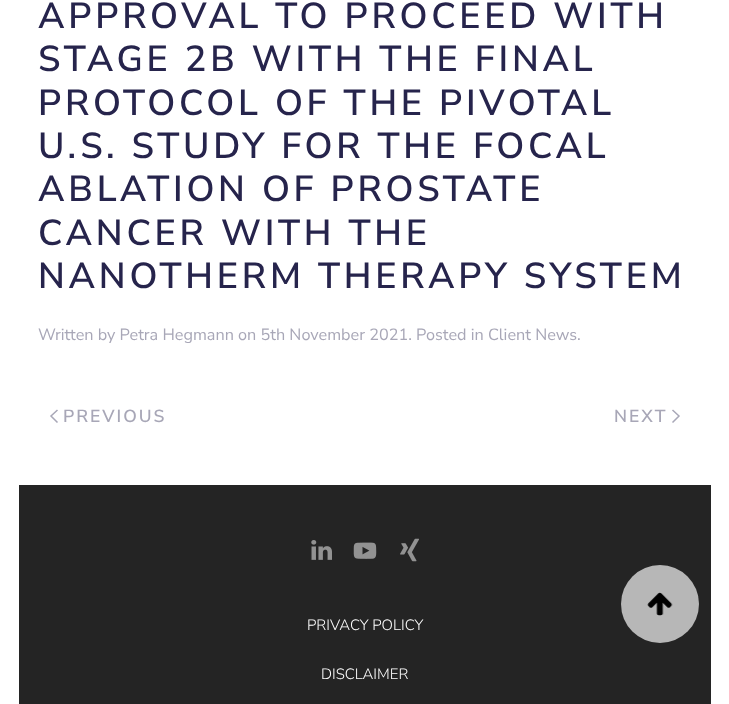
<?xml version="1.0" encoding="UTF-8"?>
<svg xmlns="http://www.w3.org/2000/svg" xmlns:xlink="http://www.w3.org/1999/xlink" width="729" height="704">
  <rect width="100%" height="100%" fill="#ffffff" />
  <path d="M 57.5 410 l -6.5 6 l 6.5 6.5" fill="none" stroke="#a8a7b7" stroke-width="1.5" />
  <path d="M 672.5 410 l 6.5 6 l -6.5 6.5" fill="none" stroke="#a8a7b7" stroke-width="1.5" />
  <rect x="19" y="485" width="692" height="219" fill="#242424" />
  <circle cx="660" cy="604" r="39" fill="#b7b7b7" />
  <image x="647" y="592" width="26" height="24" xlink:href="image1.png" />
  <image x="311" y="540" width="21" height="20" xlink:href="image2.png" />
  <image x="353" y="542" width="24" height="17" xlink:href="image3.png" />
  <image x="400" y="538" width="19" height="24" xlink:href="image4.png" />
  <text x="38" y="28" style="font-family: Nunito Sans; font-size: 36.1px; font-weight: 200; letter-spacing: 3.75px; fill: #26244c">APPROVAL TO PROCEED WITH</text>
  <text x="38" y="71" style="font-family: Nunito Sans; font-size: 36.1px; font-weight: 200; letter-spacing: 3.75px; fill: #26244c">STAGE 2B WITH THE FINAL</text>
  <text x="38" y="115" style="font-family: Nunito Sans; font-size: 36.1px; font-weight: 200; letter-spacing: 3.75px; fill: #26244c">PROTOCOL OF THE PIVOTAL</text>
  <text x="38" y="158" style="font-family: Nunito Sans; font-size: 36.1px; font-weight: 200; letter-spacing: 3.75px; fill: #26244c">U.S. STUDY FOR THE FOCAL</text>
  <text x="38" y="201" style="font-family: Nunito Sans; font-size: 36.1px; font-weight: 200; letter-spacing: 3.75px; fill: #26244c">ABLATION OF PROSTATE</text>
  <text x="38" y="245" style="font-family: Nunito Sans; font-size: 36.1px; font-weight: 200; letter-spacing: 3.75px; fill: #26244c">CANCER WITH THE</text>
  <text x="38" y="288" style="font-family: Nunito Sans; font-size: 36.1px; font-weight: 200; letter-spacing: 3.75px; fill: #26244c">NANOTHERM THERAPY SYSTEM</text>
  <text x="38" y="340" style="font-family: 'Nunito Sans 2'; font-size: 16.25px; font-weight: 200; fill: #a8a7b7">Written by Petra Hegmann on 5th November 2021. Posted in Client News.</text>
  <text x="63" y="422" style="font-family: Nunito Sans; font-size: 17.5px; font-weight: 200; letter-spacing: 2px; fill: #a8a7b7">PREVIOUS</text>
  <text x="614" y="422" style="font-family: Nunito Sans; font-size: 17.5px; font-weight: 200; letter-spacing: 2px; fill: #a8a7b7">NEXT</text>
  <text x="307" y="630" style="font-family: 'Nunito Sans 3'; font-size: 15px; font-weight: 200; fill: #ffffff">PRIVACY POLICY</text>
  <text x="321" y="679" style="font-family: 'Nunito Sans 3'; font-size: 15px; font-weight: 200; fill: #ffffff">DISCLAIMER</text>
</svg>
